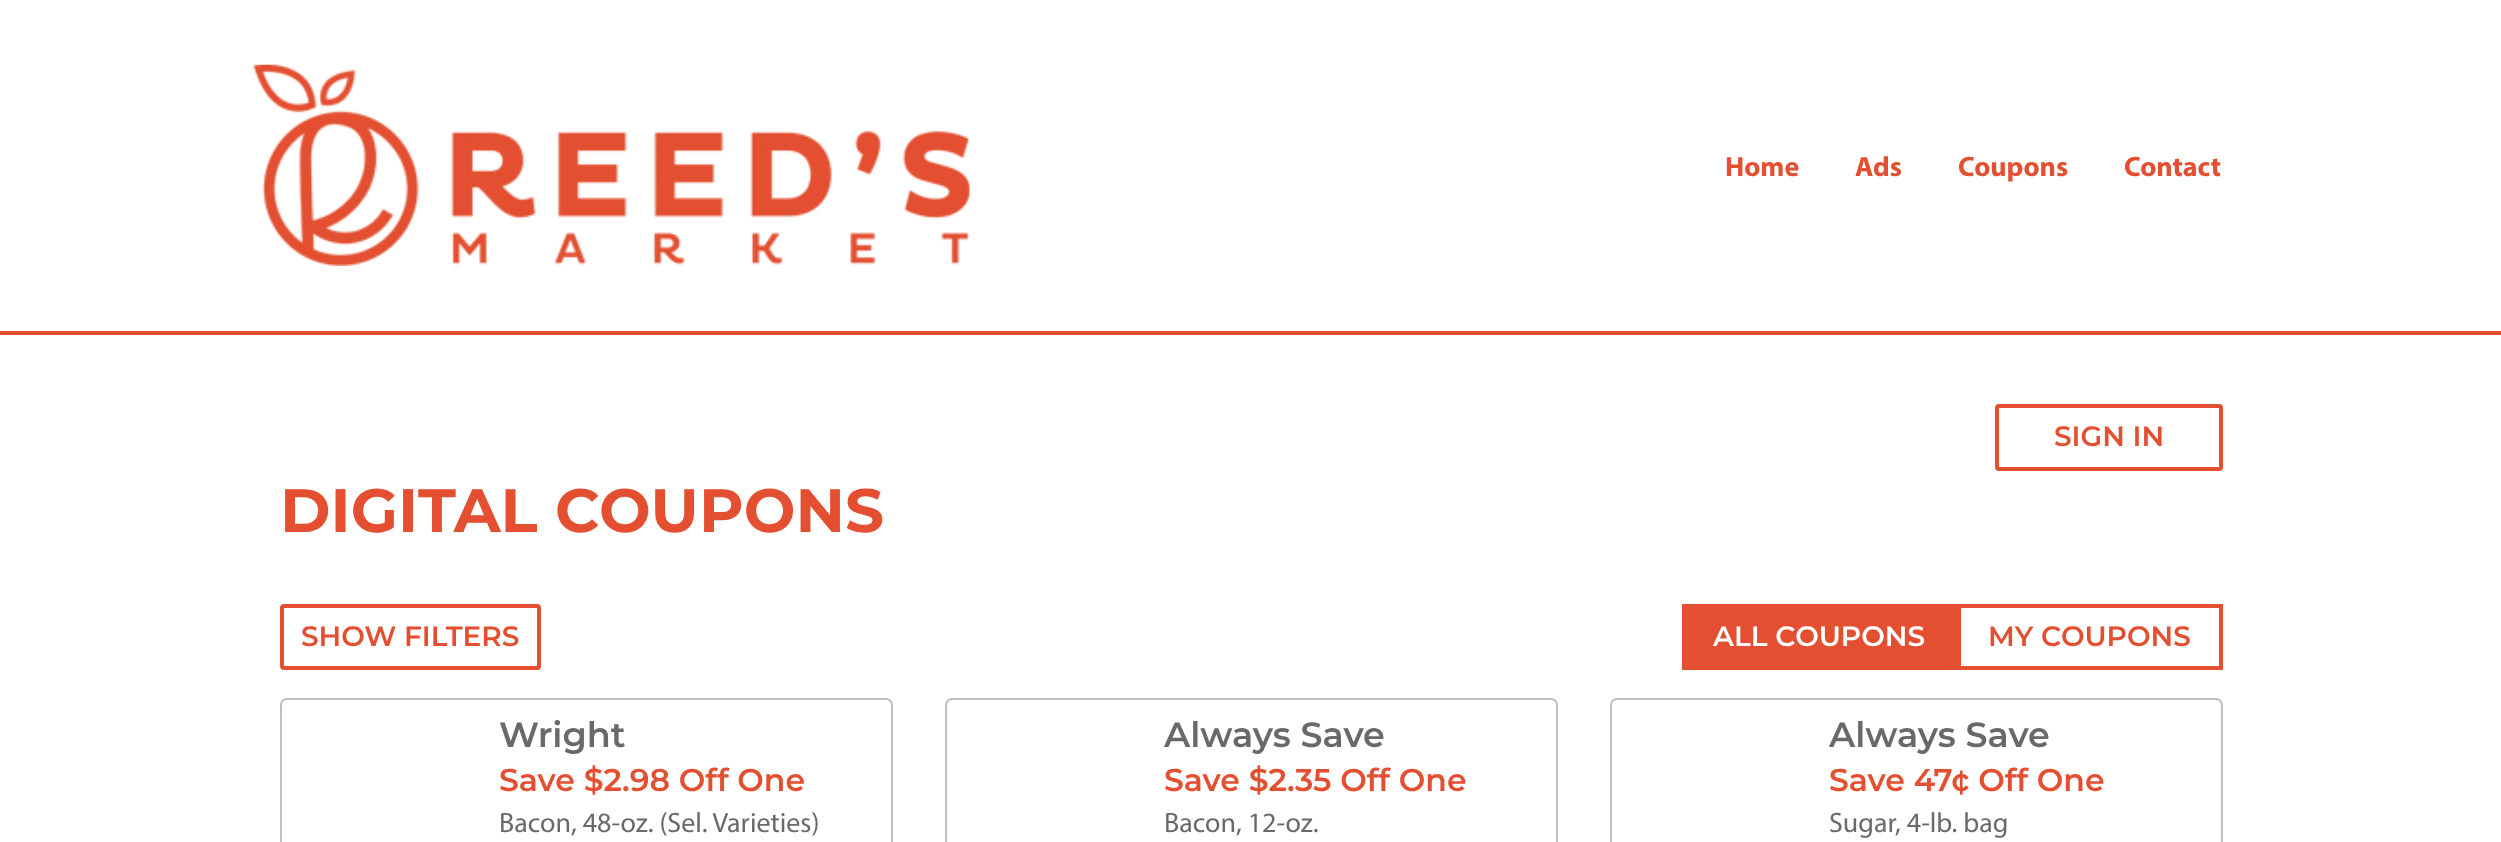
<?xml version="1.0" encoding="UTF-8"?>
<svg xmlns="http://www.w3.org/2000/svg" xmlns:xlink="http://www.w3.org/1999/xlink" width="2501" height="842">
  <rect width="100%" height="100%" fill="#ffffff" />
  <rect y="331" width="2501" height="4" fill="#e34f30" />
  <image x="253" y="64" width="717" height="202" xlink:href="image1.png" />
  <rect x="1997" y="406" width="224" height="63" rx="2" fill="none" stroke="#e34f30" stroke-width="4" />
  <rect x="282" y="606" width="257" height="62" rx="2" fill="none" stroke="#e34f30" stroke-width="4" />
  <rect x="281" y="699" width="611" height="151" rx="6" fill="none" stroke="#bfbfbf" stroke-width="2" />
  <rect x="946" y="699" width="611" height="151" rx="6" fill="none" stroke="#bfbfbf" stroke-width="2" />
  <rect x="1611" y="699" width="611" height="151" rx="6" fill="none" stroke="#bfbfbf" stroke-width="2" />
  <rect x="1682" y="604" width="275" height="66" fill="#e34f30" />
  <rect x="1959" y="606" width="262" height="62" fill="none" stroke="#e34f30" stroke-width="4" />
  <text x="1725" y="176" style="font-family: Myriad; font-size: 28px; font-weight: bold; fill: #e34f30">Home</text>
  <text x="1855" y="176" style="font-family: Myriad; font-size: 28px; font-weight: bold; fill: #e34f30">Ads</text>
  <text x="1958" y="176" style="font-family: Myriad; font-size: 28px; font-weight: bold; fill: #e34f30">Coupons</text>
  <text x="2124" y="176" style="font-family: Myriad; font-size: 28px; font-weight: bold; fill: #e34f30">Contact</text>
  <text x="2054" y="446" style="font-family: Montserrat; font-size: 28px; font-weight: 600; fill: #e34f30">SIGN IN</text>
  <text x="280" y="532" style="font-family: Montserrat; font-size: 61.25px; font-weight: bold; fill: #e34f30">DIGITAL COUPONS</text>
  <text x="301" y="646" style="font-family: Montserrat; font-size: 28px; font-weight: 600; fill: #e34f30">SHOW FILTERS</text>
  <text x="499" y="747" style="font-family: Montserrat; font-size: 35px; font-weight: 600; fill: #696969">Wright</text>
  <text x="499" y="791" style="font-family: Montserrat; font-size: 31.5px; font-weight: 600; fill: #e34f30">Save $2.98 Off One</text>
  <text x="499" y="832" style="font-family: Myriad; font-size: 28px; fill: #696969">Bacon, 48-oz. (Sel. Varieties)</text>
  <text x="1164" y="747" style="font-family: Montserrat; font-size: 35px; font-weight: 600; fill: #696969">Always Save</text>
  <text x="1164" y="791" style="font-family: Montserrat; font-size: 31.5px; font-weight: 600; fill: #e34f30">Save $2.35 Off One</text>
  <text x="1164" y="832" style="font-family: Myriad; font-size: 28px; fill: #696969">Bacon, 12-oz.</text>
  <text x="1829" y="747" style="font-family: Montserrat; font-size: 35px; font-weight: 600; fill: #696969">Always Save</text>
  <text x="1829" y="791" style="font-family: Montserrat; font-size: 31.5px; font-weight: 600; fill: #e34f30">Save 47¢ Off One</text>
  <text x="1829" y="832" style="font-family: Myriad; font-size: 28px; fill: #696969">Sugar, 4-lb. bag</text>
  <text x="1713" y="646" style="font-family: Montserrat; font-size: 28px; font-weight: 600; fill: #ffffff">ALL COUPONS</text>
  <text x="1988" y="646" style="font-family: Montserrat; font-size: 28px; font-weight: 600; fill: #e34f30">MY COUPONS</text>
</svg>
